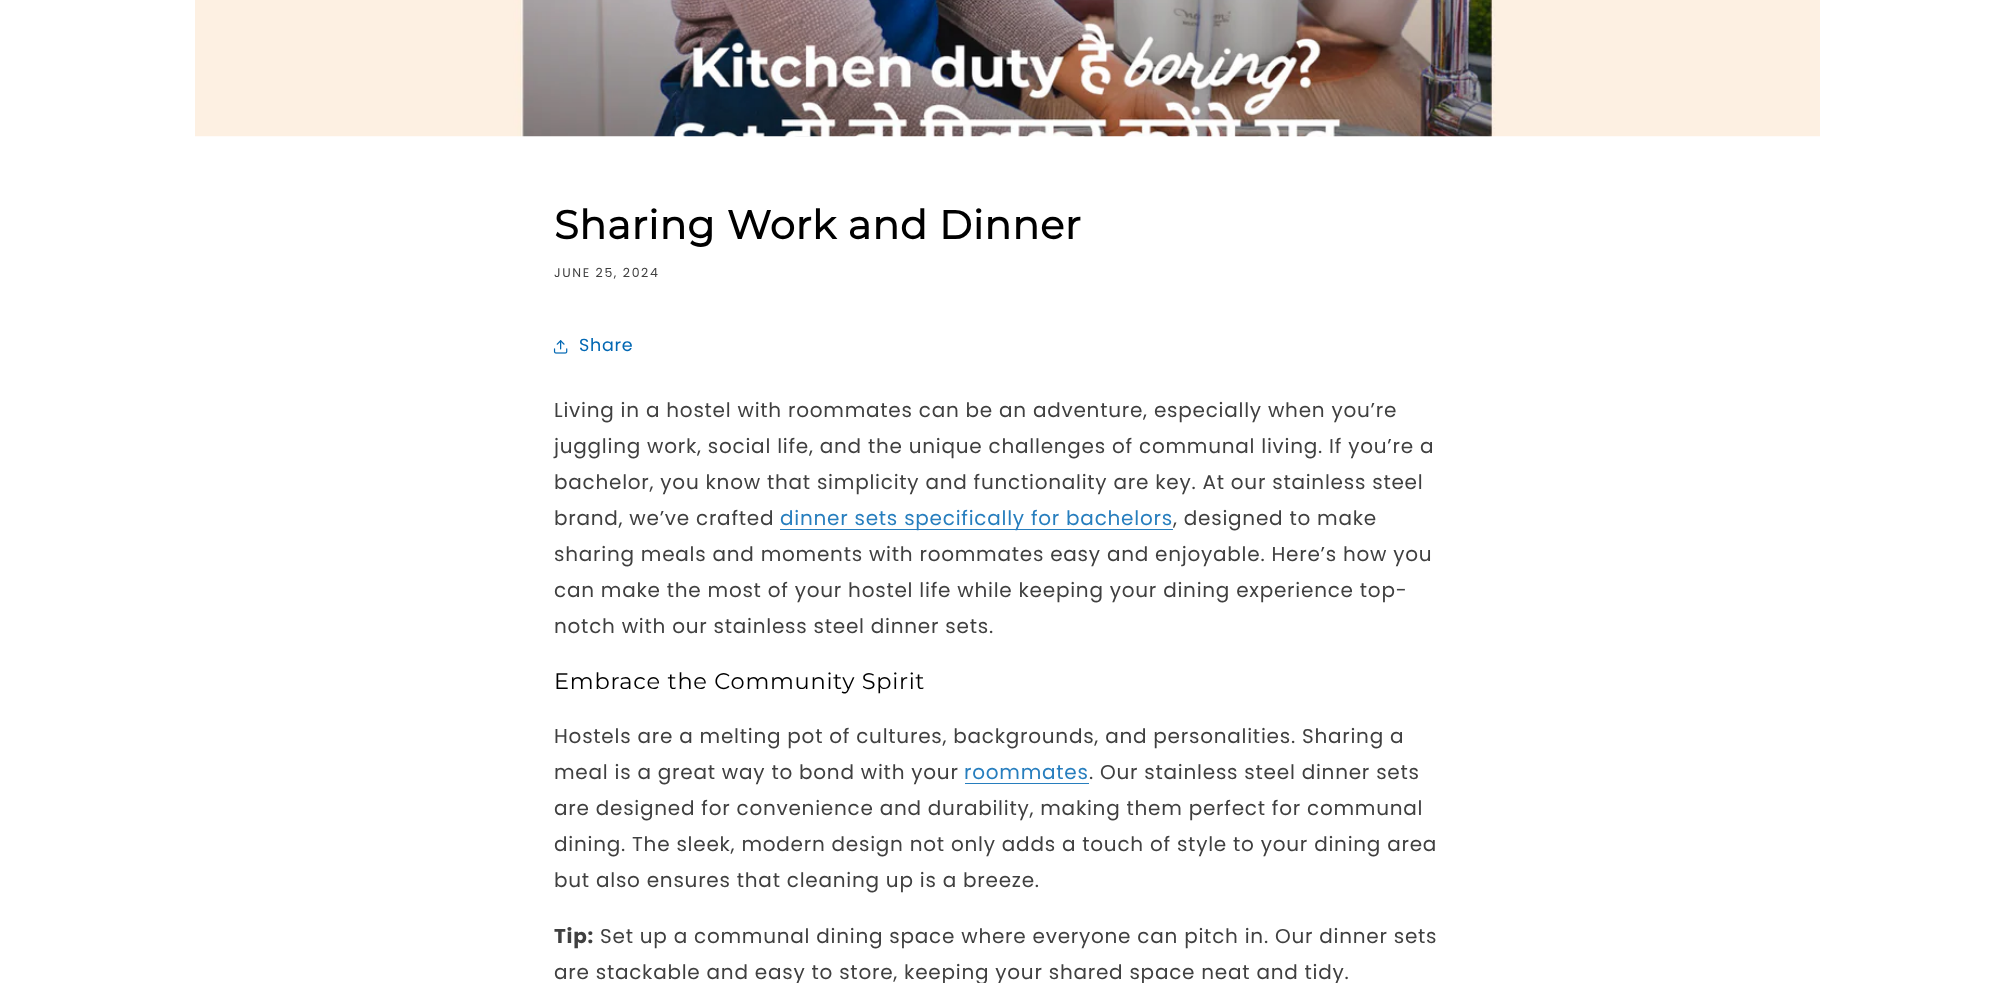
<?xml version="1.0" encoding="UTF-8"?>
<svg xmlns="http://www.w3.org/2000/svg" xmlns:xlink="http://www.w3.org/1999/xlink" width="2015" height="983">
  <rect width="100%" height="100%" fill="#ffffff" />
  <image x="195" y="0" width="1625" height="137" xlink:href="image1.png" />
  <image x="553" y="340" width="15" height="14" xlink:href="image2.png" />
  <rect x="780" y="529" width="393" height="1" fill="#277ebe" />
  <rect x="965" y="783" width="124" height="1" fill="#277ebe" />
  <text x="554" y="239" style="font-family: Montserrat; font-size: 40px; font-weight: bold; letter-spacing: 0.75px; fill: #000000">Sharing Work and Dinner</text>
  <text x="554" y="277" style="font-family: Poppins; font-size: 12.5px; letter-spacing: 1.6px; fill: #404040">JUNE 25, 2024</text>
  <text x="579" y="351" style="font-family: Poppins; font-size: 17.5px; letter-spacing: 0.75px; fill: #0167b3">Share</text>
  <text x="554" y="417" style="font-family: Poppins; font-size: 20px; letter-spacing: 0.75px; fill: #404040">Living in a hostel with roommates can be an adventure, especially when you’re</text>
  <text x="554" y="453" style="font-family: Poppins; font-size: 20px; letter-spacing: 0.75px; fill: #404040">juggling work, social life, and the unique challenges of communal living. If you’re a</text>
  <text x="554" y="489" style="font-family: Poppins; font-size: 20px; letter-spacing: 0.75px; fill: #404040">bachelor, you know that simplicity and functionality are key. At our stainless steel</text>
  <text x="554" y="525" style="font-family: Poppins; font-size: 20px; letter-spacing: 0.75px; fill: #404040">brand, we’ve crafted</text>
  <text x="780" y="525" style="font-family: Poppins; font-size: 20px; letter-spacing: 0.75px; fill: #277ebe">dinner sets specifically for bachelors</text>
  <text x="1173" y="525" style="font-family: Poppins; font-size: 20px; letter-spacing: 0.75px; fill: #404040">, designed to make</text>
  <text x="554" y="561" style="font-family: Poppins; font-size: 20px; letter-spacing: 0.75px; fill: #404040">sharing meals and moments with roommates easy and enjoyable. Here’s how you</text>
  <text x="554" y="597" style="font-family: Poppins; font-size: 20px; letter-spacing: 0.75px; fill: #404040">can make the most of your hostel life while keeping your dining experience top-</text>
  <text x="554" y="633" style="font-family: Poppins; font-size: 20px; letter-spacing: 0.75px; fill: #404040">notch with our stainless steel dinner sets.</text>
  <text x="554" y="689" style="font-family: Montserrat; font-size: 22.5px; font-weight: 100; letter-spacing: 0.75px; fill: #000000">Embrace the Community Spirit</text>
  <text x="554" y="743" style="font-family: Poppins; font-size: 20px; letter-spacing: 0.75px; fill: #404040">Hostels are a melting pot of cultures, backgrounds, and personalities. Sharing a</text>
  <text x="554" y="779" style="font-family: Poppins; font-size: 20px; letter-spacing: 0.75px; fill: #404040">meal is a great way to bond with your</text>
  <text x="964" y="779" style="font-family: Poppins; font-size: 20px; letter-spacing: 0.75px; fill: #277ebe">roommates</text>
  <text x="1089" y="779" style="font-family: Poppins; font-size: 20px; letter-spacing: 0.75px; fill: #404040">. Our stainless steel dinner sets</text>
  <text x="554" y="815" style="font-family: Poppins; font-size: 20px; letter-spacing: 0.75px; fill: #404040">are designed for convenience and durability, making them perfect for communal</text>
  <text x="554" y="851" style="font-family: Poppins; font-size: 20px; letter-spacing: 0.75px; fill: #404040">dining. The sleek, modern design not only adds a touch of style to your dining area</text>
  <text x="554" y="887" style="font-family: Poppins; font-size: 20px; letter-spacing: 0.75px; fill: #404040">but also ensures that cleaning up is a breeze.</text>
  <text x="554" y="943" style="font-family: Poppins; font-size: 20px; font-weight: bold; letter-spacing: 0.75px; fill: #404040">Tip:</text>
  <text x="600" y="943" style="font-family: Poppins; font-size: 20px; letter-spacing: 0.75px; fill: #404040">Set up a communal dining space where everyone can pitch in. Our dinner sets</text>
  <text x="554" y="979" style="font-family: Poppins; font-size: 20px; letter-spacing: 0.75px; fill: #404040">are stackable and easy to store, keeping your shared space neat and tidy.</text>
</svg>
